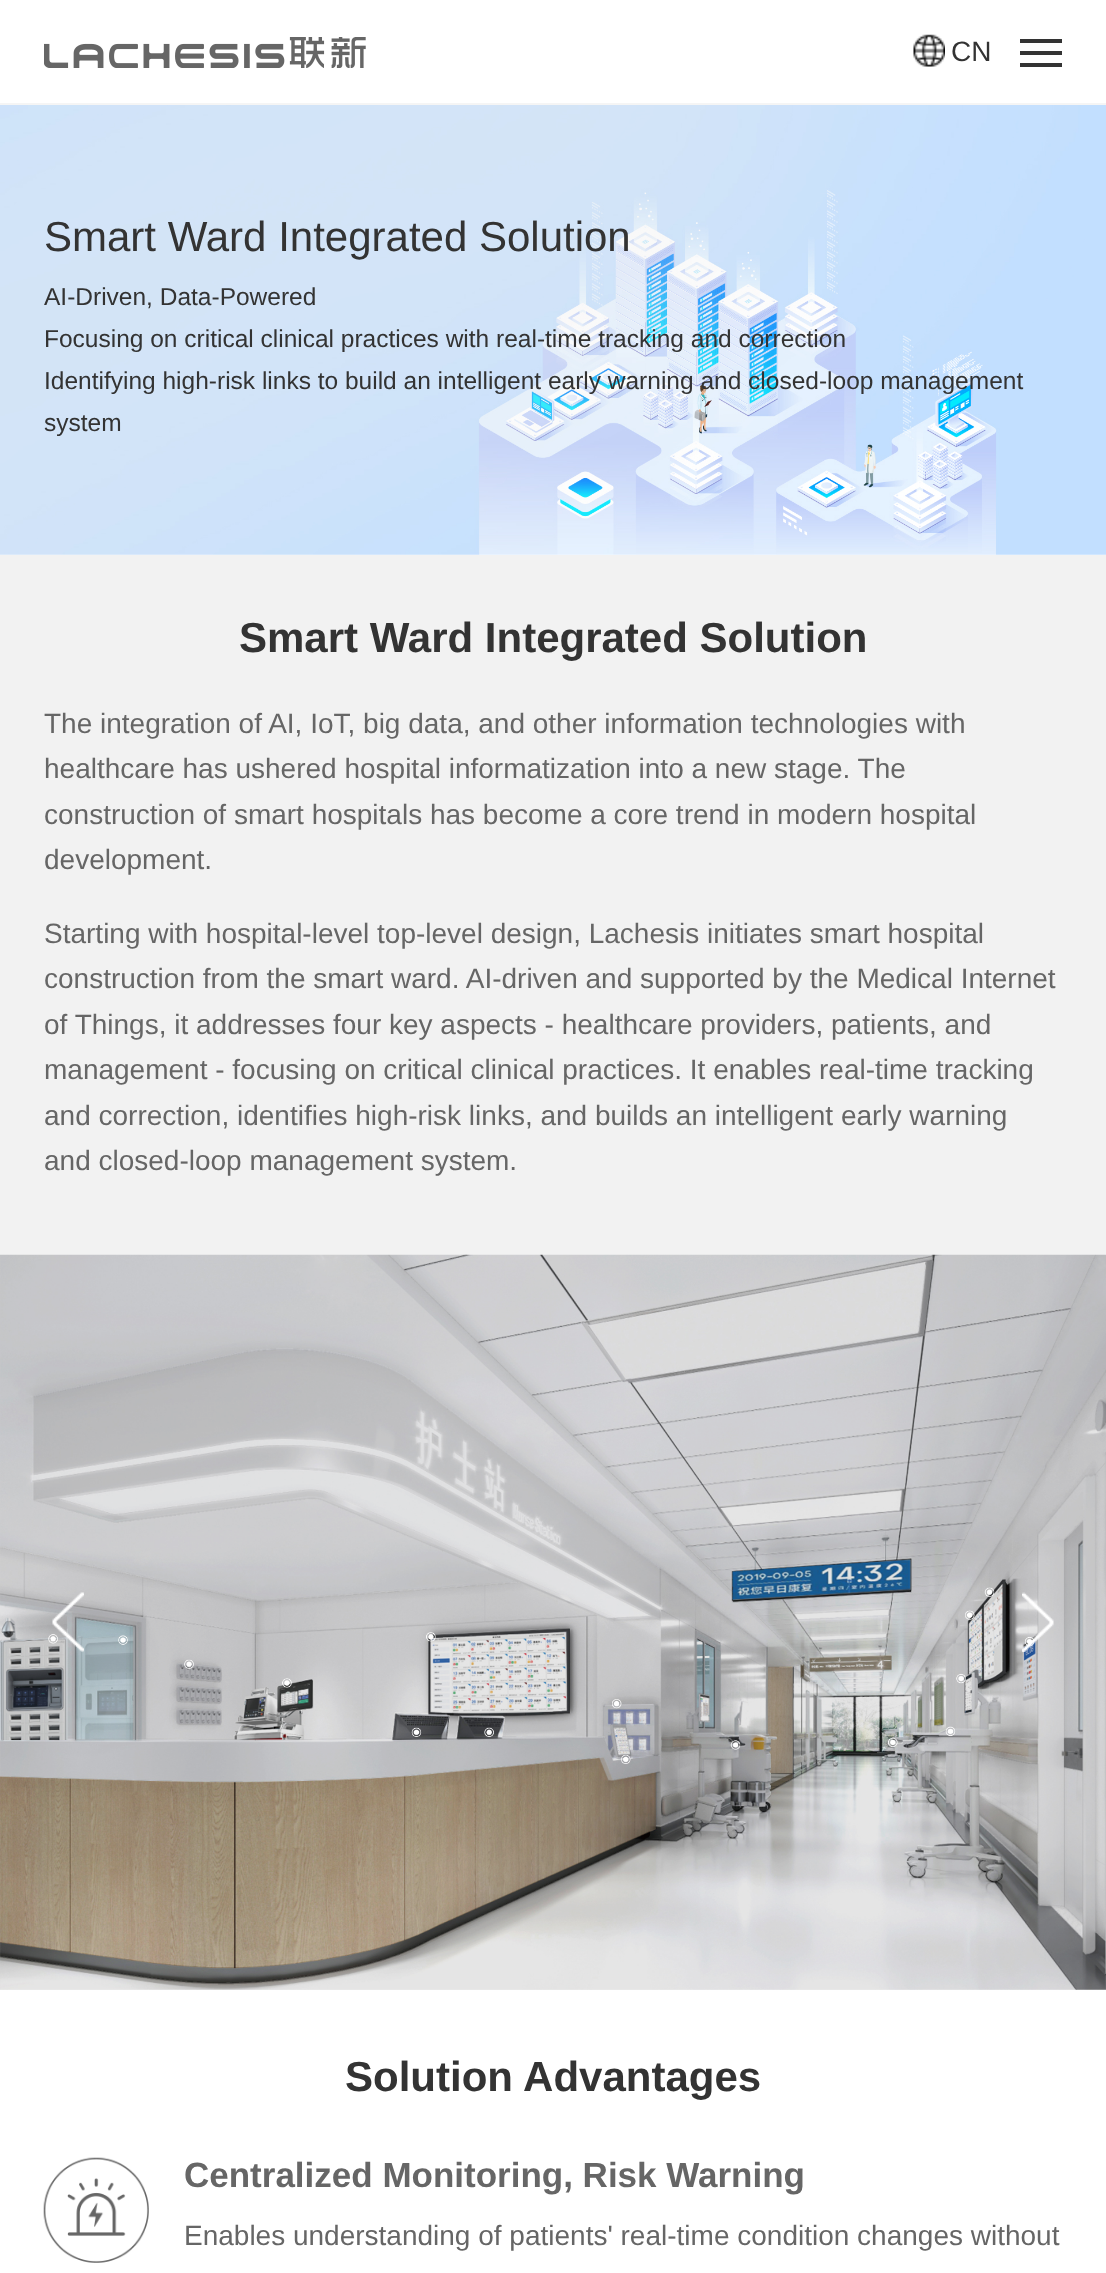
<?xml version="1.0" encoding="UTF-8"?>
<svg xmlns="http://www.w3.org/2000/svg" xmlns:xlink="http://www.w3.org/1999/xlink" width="1106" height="2273">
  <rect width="100%" height="100%" fill="#ffffff" />
  <image x="44" y="37" width="322" height="31" xlink:href="image1.png" />
  <image x="913" y="34" width="32" height="33" xlink:href="image2.png" />
  <rect x="1020" y="51" width="42" height="4" fill="#333333" />
  <rect x="1020" y="39" width="42" height="4" fill="#333333" />
  <rect x="1020" y="63" width="42" height="4" fill="#333333" />
  <rect y="103" width="1106" height="2" fill="#f5f5f5" />
  <image x="0" y="105" width="1106" height="450" xlink:href="image3.png" />
  <rect y="555" width="1106" height="1435" fill="#f2f2f2" />
  <image x="0" y="1254" width="1106" height="736" xlink:href="image4.png" />
  <image x="52" y="1592" width="32" height="60" xlink:href="image5.png" />
  <image x="1022" y="1592" width="32" height="60" xlink:href="image6.png" />
  <image x="43" y="2157" width="106" height="106" xlink:href="image7.png" />
  <text x="951" y="61" style="font-family: Liberation Sans; font-size: 28px; fill: #333333">CN</text>
  <text x="44" y="251" style="font-family: Liberation Sans; font-size: 42px; fill: #333333">Smart Ward Integrated Solution</text>
  <text x="44" y="305" style="font-family: Liberation Sans; font-size: 24.5px; fill: #333333">AI-Driven, Data-Powered</text>
  <text x="44" y="347" style="font-family: Liberation Sans; font-size: 24.5px; fill: #333333">Focusing on critical clinical practices with real-time tracking and correction</text>
  <text x="44" y="389" style="font-family: Liberation Sans; font-size: 24.5px; fill: #333333">Identifying high-risk links to build an intelligent early warning and closed-loop management</text>
  <text x="44" y="431" style="font-family: Liberation Sans; font-size: 24.5px; fill: #333333">system</text>
  <text x="239" y="652" style="font-family: Liberation Sans; font-size: 42px; font-weight: bold; fill: #333333">Smart Ward Integrated Solution</text>
  <text x="44" y="733" style="font-family: Liberation Sans; font-size: 28px; fill: #666666">The integration of AI, IoT, big data, and other information technologies with</text>
  <text x="44" y="778" style="font-family: Liberation Sans; font-size: 28px; fill: #666666">healthcare has ushered hospital informatization into a new stage. The</text>
  <text x="44" y="824" style="font-family: Liberation Sans; font-size: 28px; fill: #666666">construction of smart hospitals has become a core trend in modern hospital</text>
  <text x="44" y="869" style="font-family: Liberation Sans; font-size: 28px; fill: #666666">development.</text>
  <text x="44" y="943" style="font-family: Liberation Sans; font-size: 28px; fill: #666666">Starting with hospital-level top-level design, Lachesis initiates smart hospital</text>
  <text x="44" y="988" style="font-family: Liberation Sans; font-size: 28px; fill: #666666">construction from the smart ward. AI-driven and supported by the Medical Internet</text>
  <text x="44" y="1034" style="font-family: Liberation Sans; font-size: 28px; fill: #666666">of Things, it addresses four key aspects - healthcare providers, patients, and</text>
  <text x="44" y="1079" style="font-family: Liberation Sans; font-size: 28px; fill: #666666">management - focusing on critical clinical practices. It enables real-time tracking</text>
  <text x="44" y="1125" style="font-family: Liberation Sans; font-size: 28px; fill: #666666">and correction, identifies high-risk links, and builds an intelligent early warning</text>
  <text x="44" y="1170" style="font-family: Liberation Sans; font-size: 28px; fill: #666666">and closed-loop management system.</text>
  <text x="345" y="2091" style="font-family: Liberation Sans; font-size: 42px; font-weight: bold; fill: #333333">Solution Advantages</text>
  <text x="184" y="2187" style="font-family: Liberation Sans; font-size: 35px; font-weight: bold; fill: #666666">Centralized Monitoring, Risk Warning</text>
  <text x="184" y="2245" style="font-family: Liberation Sans; font-size: 28px; fill: #666666">Enables understanding of patients' real-time condition changes without</text>
</svg>
